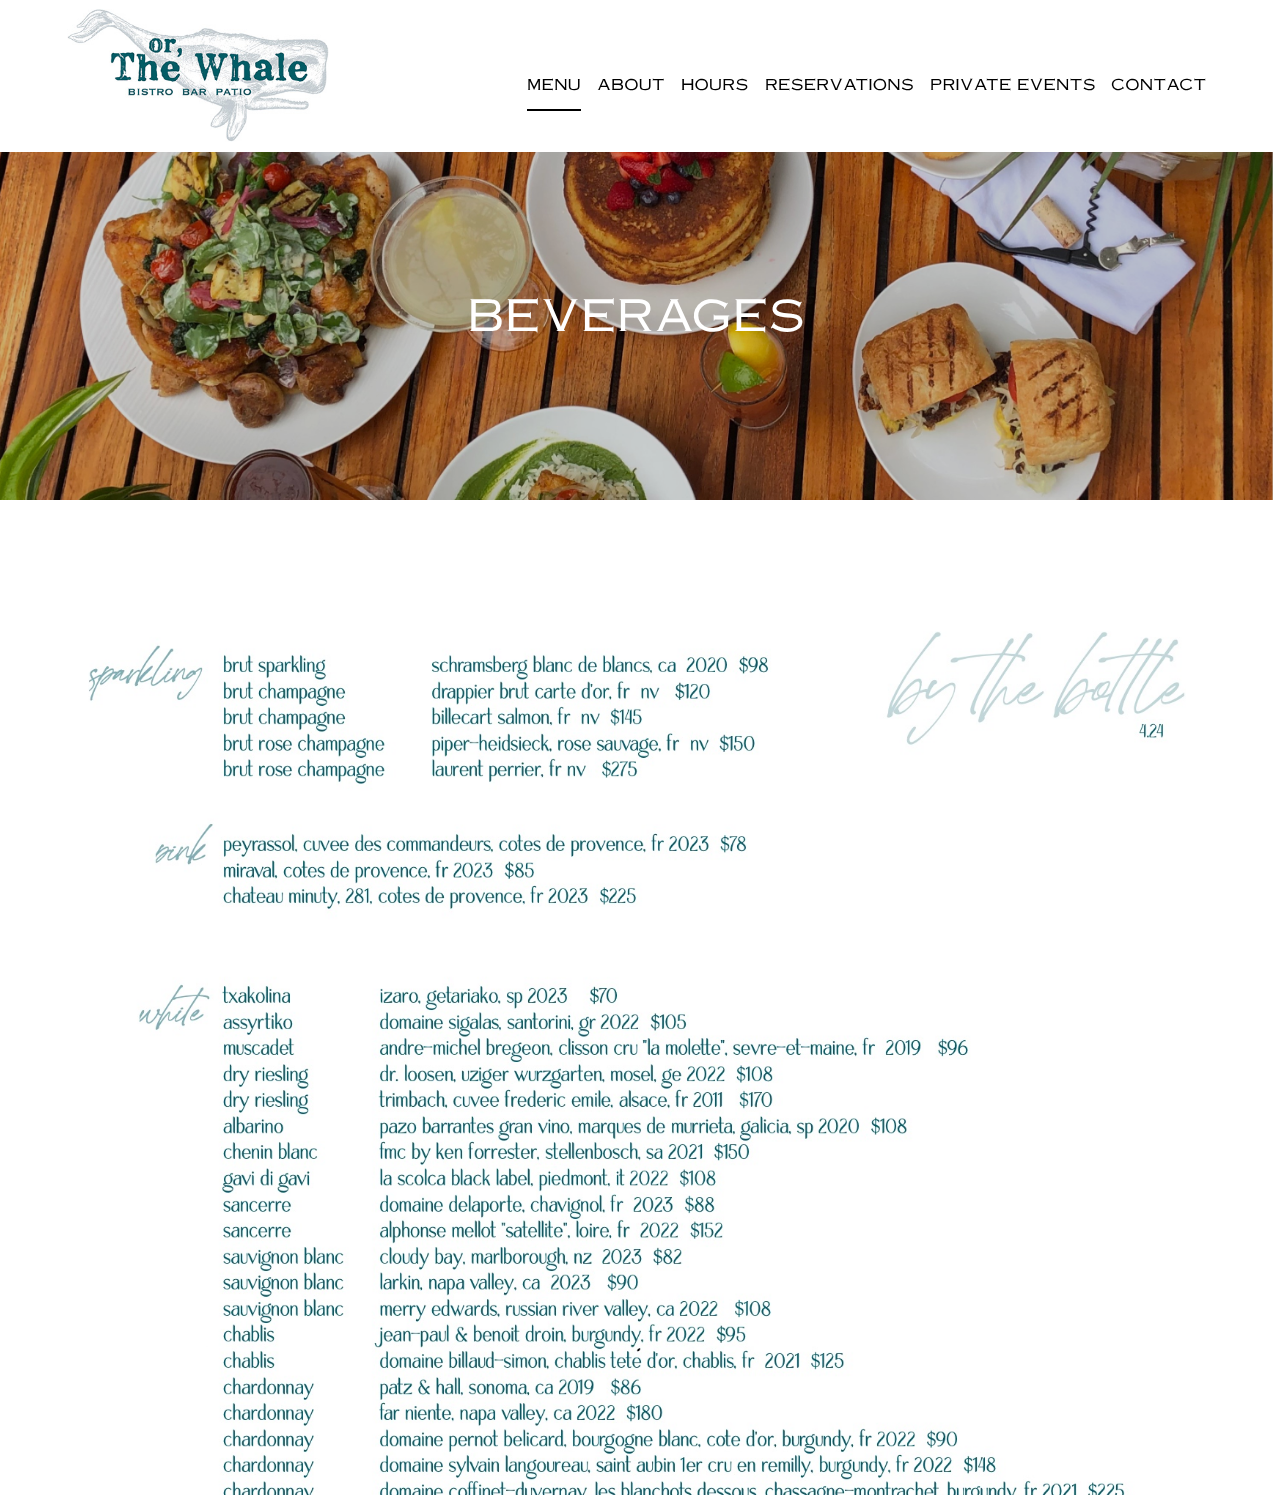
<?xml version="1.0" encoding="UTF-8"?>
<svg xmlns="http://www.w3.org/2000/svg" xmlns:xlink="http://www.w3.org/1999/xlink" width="1273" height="1495">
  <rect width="100%" height="100%" fill="#ffffff" />
  <image x="67" y="9" width="262" height="133" xlink:href="image1.png" />
  <rect x="527" y="109" width="54" height="2" fill="#000000" />
  <image x="0" y="152" width="1273" height="348" xlink:href="image2.png" />
  <image x="88" y="631" width="1098" height="864" xlink:href="image3.png" />
  <text x="527" y="90" style="font-family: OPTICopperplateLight; font-size: 14px; font-weight: 300; fill: #000000">MENU</text>
  <text x="597" y="90" style="font-family: OPTICopperplateLight; font-size: 14px; font-weight: 300; fill: #000000">ABOUT</text>
  <text x="681" y="90" style="font-family: OPTICopperplateLight; font-size: 14px; font-weight: 300; fill: #000000">HOURS</text>
  <text x="765" y="90" style="font-family: OPTICopperplateLight; font-size: 14px; font-weight: 300; fill: #000000">RESERVATIONS</text>
  <text x="930" y="90" style="font-family: OPTICopperplateLight; font-size: 14px; font-weight: 300; fill: #000000">PRIVATE EVENTS</text>
  <text x="1111" y="90" style="font-family: OPTICopperplateLight; font-size: 14px; font-weight: 300; fill: #000000">CONTACT</text>
  <text x="468" y="331" style="font-family: OPTICopperplateLight; font-size: 40px; font-weight: 300; fill: #ffffff">BEVERAGES</text>
</svg>
